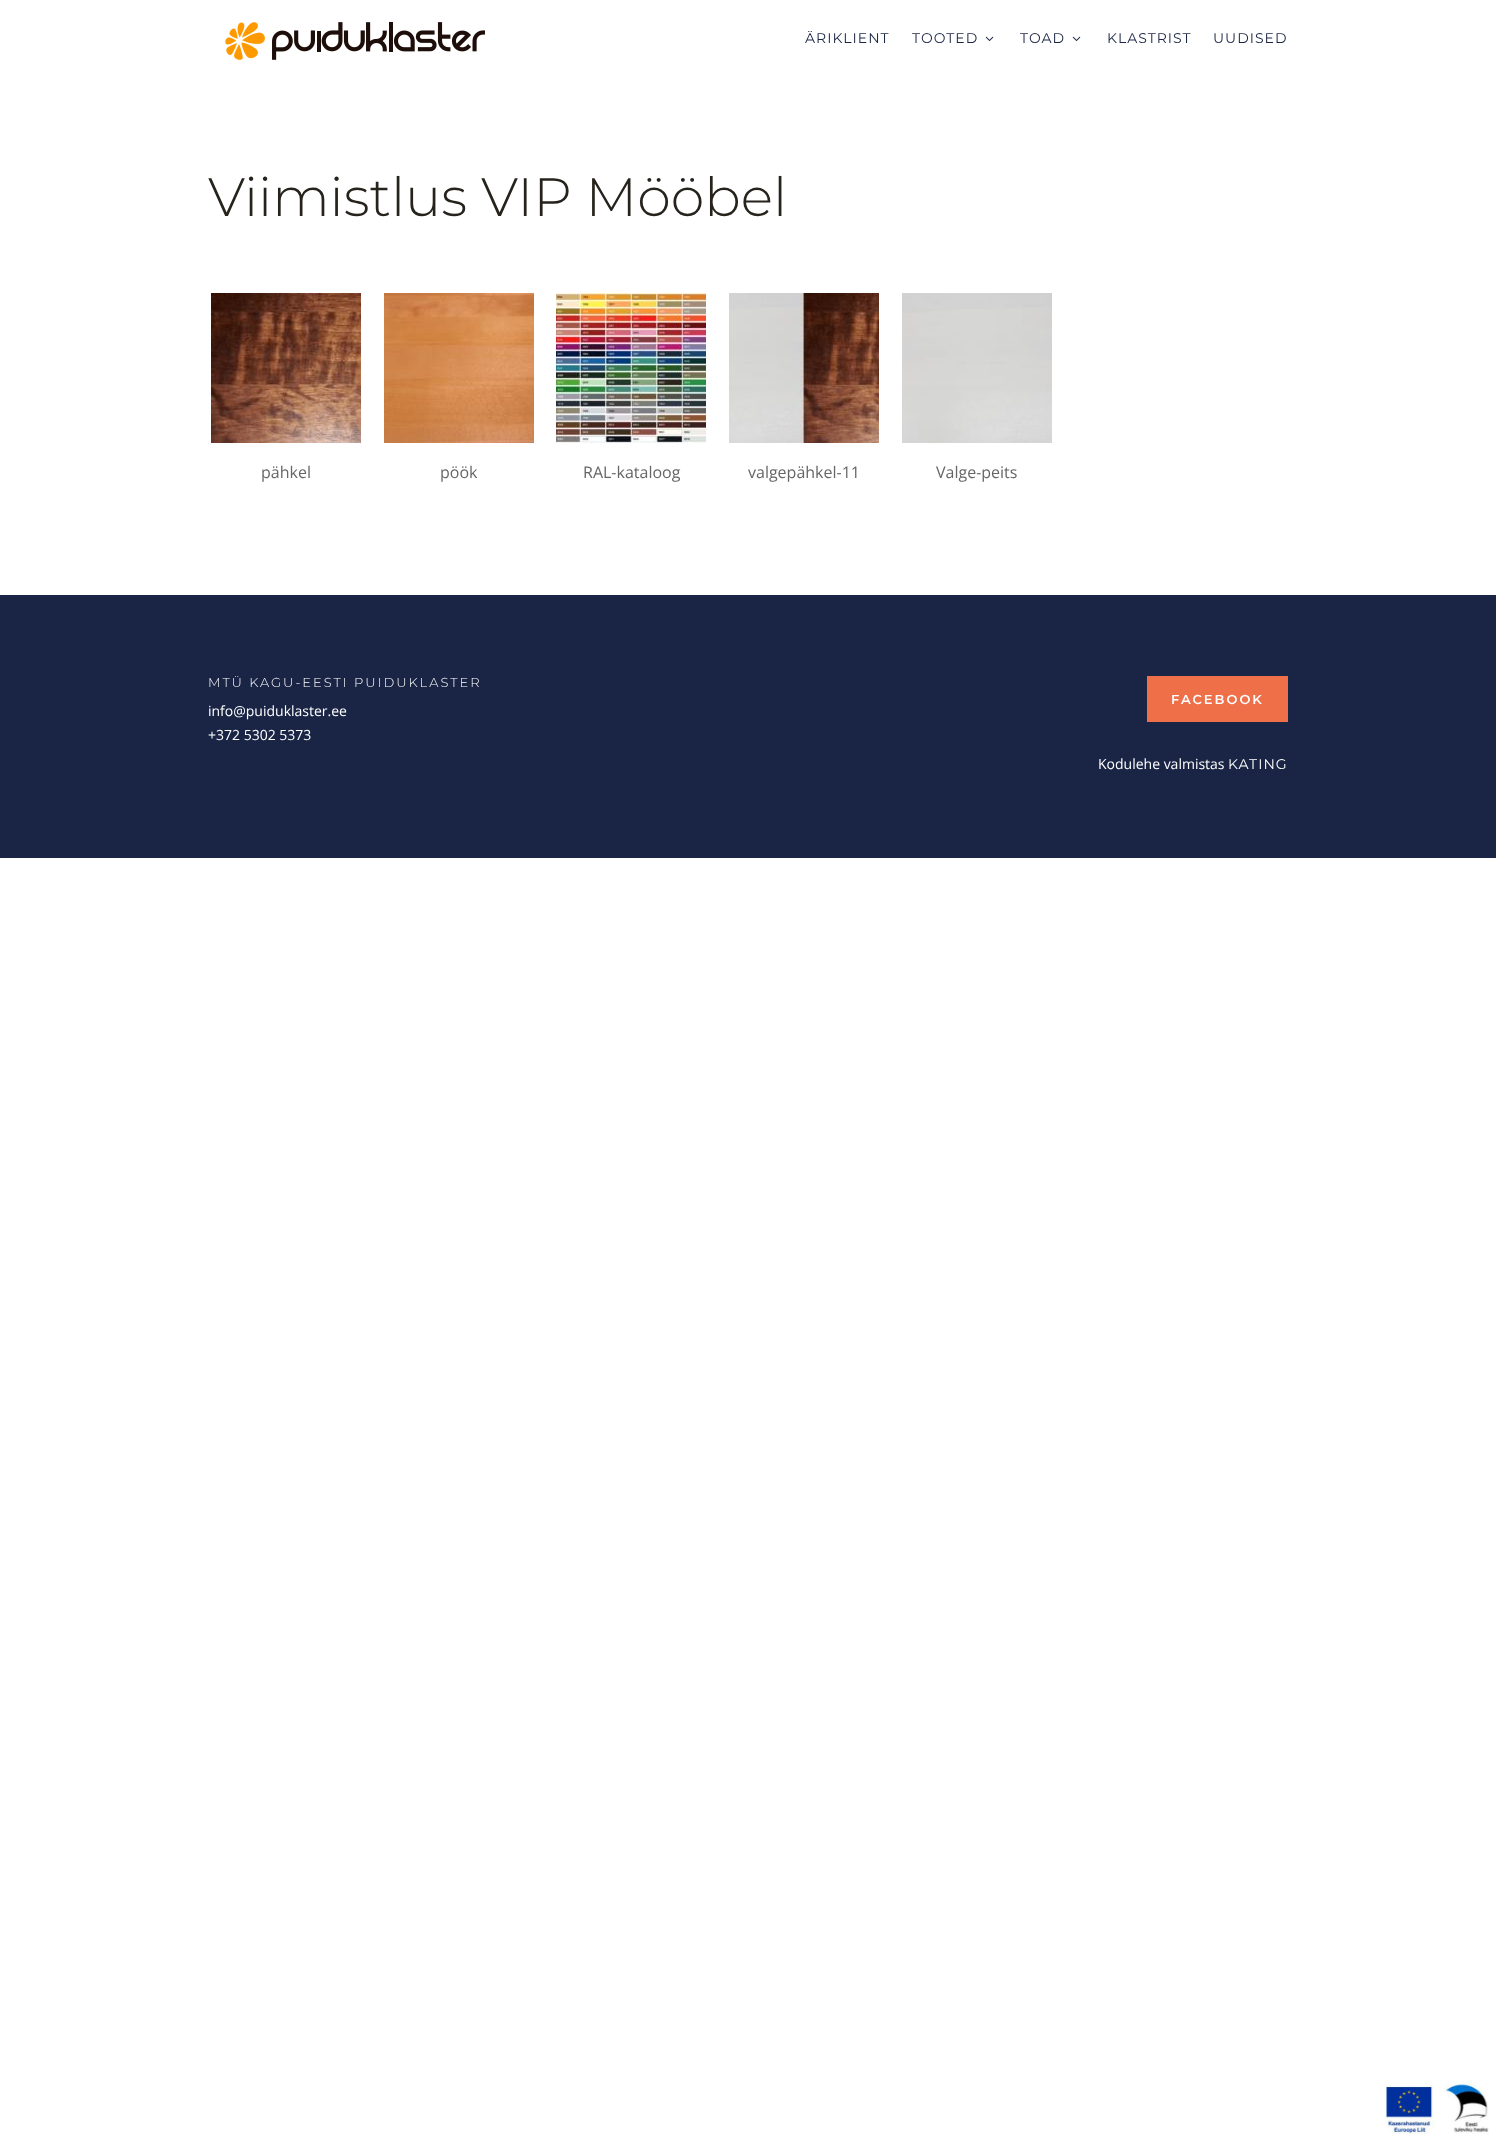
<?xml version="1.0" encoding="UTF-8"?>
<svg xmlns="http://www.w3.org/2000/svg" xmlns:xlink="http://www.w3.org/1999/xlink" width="1496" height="2150">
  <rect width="100%" height="100%" fill="#ffffff" />
  <image x="225" y="22" width="260" height="38" xlink:href="image1.png" />
  <image x="985" y="36" width="9" height="5" xlink:href="image2.png" />
  <image x="1072" y="36" width="9" height="5" xlink:href="image2.png" />
  <image x="211" y="293" width="150" height="150" xlink:href="image3.png" />
  <image x="384" y="293" width="150" height="150" xlink:href="image4.png" />
  <image x="556" y="293" width="150" height="150" xlink:href="image5.png" />
  <image x="729" y="293" width="150" height="150" xlink:href="image6.png" />
  <image x="902" y="293" width="150" height="150" xlink:href="image7.png" />
  <rect y="595" width="1496" height="263" fill="#1a2545" />
  <rect x="1147" y="676" width="141" height="46" fill="#ef6f49" />
  <image x="1385" y="2081" width="104" height="54" xlink:href="image8.png" />
  <text x="805" y="43" style="font-family: Montserrat; font-size: 14px; letter-spacing: 1px; fill: #1a2545">ÄRIKLIENT</text>
  <text x="912" y="43" style="font-family: Montserrat; font-size: 14px; letter-spacing: 1px; fill: #1a2545">TOOTED</text>
  <text x="1020" y="43" style="font-family: Montserrat; font-size: 14px; letter-spacing: 1px; fill: #1a2545">TOAD</text>
  <text x="1107" y="43" style="font-family: Montserrat; font-size: 14px; letter-spacing: 1px; fill: #1a2545">KLASTRIST</text>
  <text x="1213" y="43" style="font-family: Montserrat; font-size: 14px; letter-spacing: 1px; fill: #1a2545">UUDISED</text>
  <text x="208" y="216" style="font-family: Montserrat; font-size: 54px; font-weight: 300; fill: #26231c">Viimistlus VIP Mööbel</text>
  <text x="261" y="478" style="font-family: Open Sans; font-size: 16px; fill: #666666">pähkel</text>
  <text x="440" y="478" style="font-family: Open Sans; font-size: 16px; fill: #666666">pöök</text>
  <text x="583" y="478" style="font-family: Open Sans; font-size: 16px; fill: #666666">RAL-kataloog</text>
  <text x="748" y="478" style="font-family: Open Sans; font-size: 16px; fill: #666666">valgepähkel-11</text>
  <text x="936" y="478" style="font-family: Open Sans; font-size: 16px; fill: #666666">Valge-peits</text>
  <text x="208" y="687" style="font-family: Montserrat; font-size: 13px; font-weight: 300; letter-spacing: 2px; fill: #ffffff">MTÜ KAGU-EESTI PUIDUKLASTER</text>
  <text x="208" y="716" style="font-family: Open Sans; font-size: 14px; fill: #ffffff">info@puiduklaster.ee</text>
  <text x="208" y="740" style="font-family: Open Sans; font-size: 14px; fill: #ffffff">+372 5302 5373</text>
  <text x="1171" y="704" style="font-family: Montserrat; font-size: 13px; font-weight: 600; letter-spacing: 2px; fill: #ffffff">FACEBOOK</text>
  <text x="1098" y="769" style="font-family: Open Sans; font-size: 14px; fill: #ffffff">Kodulehe valmistas</text>
  <text x="1228" y="769" style="font-family: Montserrat; font-size: 14px; letter-spacing: 1px; fill: #ffffff">KATING</text>
</svg>
